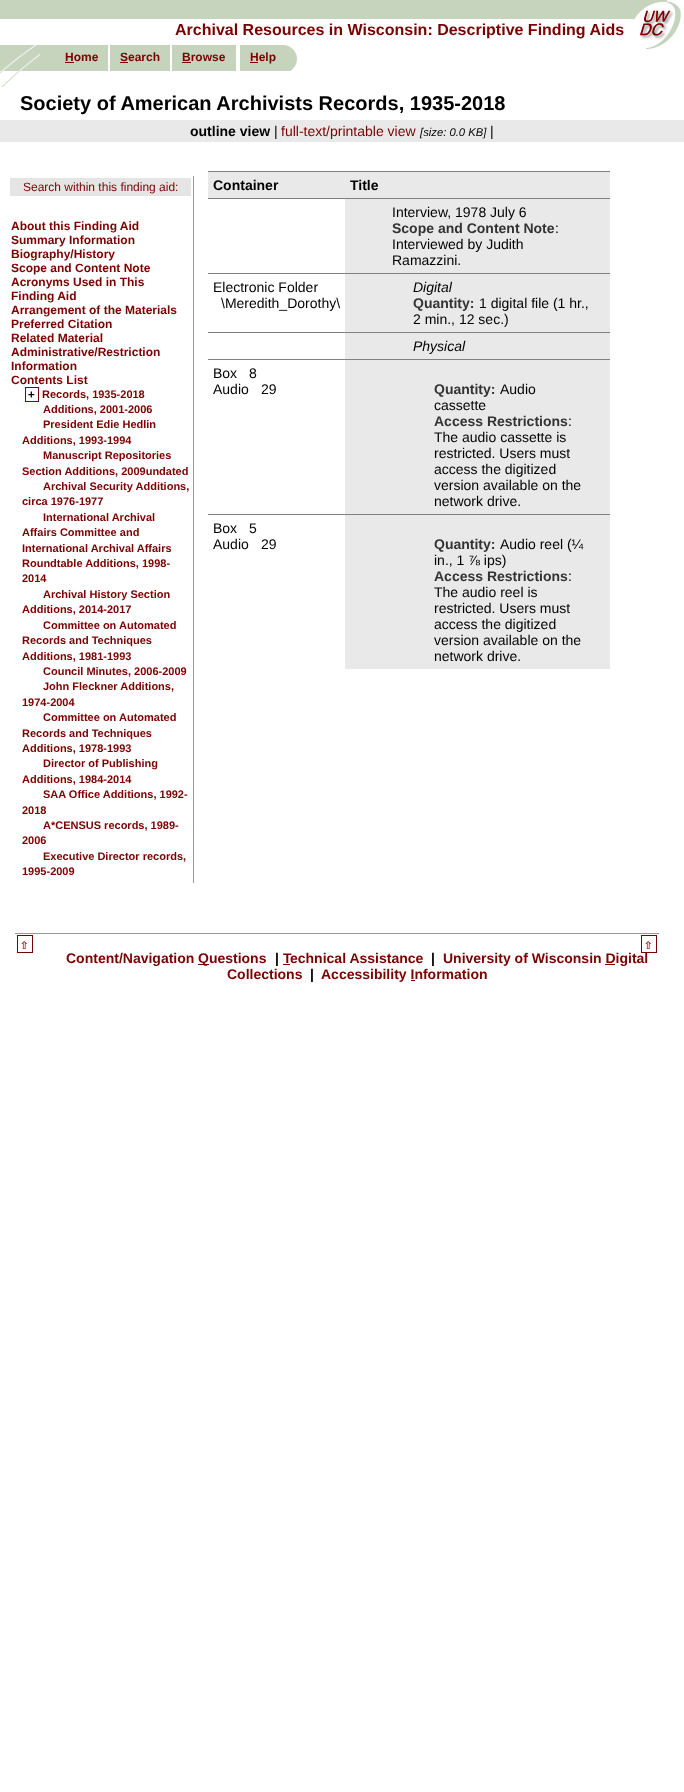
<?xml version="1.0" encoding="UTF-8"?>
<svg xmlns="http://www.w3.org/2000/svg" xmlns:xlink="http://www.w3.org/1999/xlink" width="684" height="1792">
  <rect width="100%" height="100%" fill="#ffffff" />
  <rect width="634" height="19" fill="#c6d4be" />
  <image x="634" y="0" width="50" height="49" xlink:href="image1.png" />
  <image x="0" y="45" width="40" height="42" xlink:href="image2.png" />
  <rect x="40" y="45" width="68" height="26" fill="#c6d4be" />
  <rect x="65" y="62" width="9" height="1" fill="#7b0100" />
  <rect x="110" y="45" width="60" height="26" fill="#c6d4be" />
  <rect x="120" y="62" width="8" height="1" fill="#7b0100" />
  <rect x="172" y="45" width="64" height="26" fill="#c6d4be" />
  <rect x="182" y="62" width="9" height="1" fill="#7b0100" />
  <image x="240" y="45" width="57" height="26" xlink:href="image3.png" />
  <rect x="250" y="62" width="8" height="1" fill="#7b0100" />
  <rect y="120" width="684" height="22" fill="#e9e9e9" />
  <rect x="193" y="176" width="1" height="707" fill="#999999" />
  <rect x="10" y="178" width="181" height="18" fill="#e5e5e5" />
  <rect x="25.5" y="387.5" width="13" height="14" fill="none" stroke="#7b0100" />
  <rect x="208" y="172" width="402" height="497" fill="#e9e9e9" />
  <rect x="208" y="171" width="402" height="1" fill="#808080" />
  <rect x="208" y="199" width="137" height="74" fill="#ffffff" />
  <rect x="208" y="198" width="402" height="1" fill="#808080" />
  <rect x="208" y="274" width="137" height="58" fill="#ffffff" />
  <rect x="208" y="273" width="402" height="1" fill="#808080" />
  <rect x="208" y="333" width="137" height="26" fill="#ffffff" />
  <rect x="208" y="332" width="402" height="1" fill="#808080" />
  <rect x="208" y="360" width="137" height="154" fill="#ffffff" />
  <rect x="208" y="359" width="402" height="1" fill="#808080" />
  <rect x="208" y="515" width="137" height="154" fill="#ffffff" />
  <rect x="208" y="514" width="402" height="1" fill="#808080" />
  <rect x="15" y="933" width="644" height="1" fill="#999999" />
  <rect x="17.5" y="935.5" width="15" height="17" fill="none" stroke="#7b0100" />
  <rect x="641.5" y="935.5" width="15" height="17" fill="none" stroke="#7b0100" />
  <rect x="198" y="964" width="11" height="1" fill="#7b0100" />
  <rect x="283" y="964" width="7" height="1" fill="#7b0100" />
  <rect x="605" y="964" width="10" height="1" fill="#7b0100" />
  <rect x="411" y="980" width="4" height="1" fill="#7b0100" />
  <text x="175" y="35" style="font-family: Liberation Sans; font-size: 16px; font-weight: bold; fill: #7b0100">Archival Resources in Wisconsin: Descriptive Finding Aids</text>
  <text x="65" y="61" style="font-family: Liberation Sans; font-size: 12px; font-weight: bold; fill: #7b0100">Home</text>
  <text x="120" y="61" style="font-family: Liberation Sans; font-size: 12px; font-weight: bold; fill: #7b0100">Search</text>
  <text x="182" y="61" style="font-family: Liberation Sans; font-size: 12px; font-weight: bold; fill: #7b0100">Browse</text>
  <text x="250" y="61" style="font-family: Liberation Sans; font-size: 12px; font-weight: bold; fill: #7b0100">Help</text>
  <text x="20" y="110" style="font-family: Liberation Sans; font-size: 20px; font-weight: bold; fill: #000000">Society of American Archivists Records, 1935-2018</text>
  <text x="190" y="136" style="font-family: Liberation Sans; font-size: 14px; font-weight: bold; fill: #000000">outline view</text>
  <text x="274" y="136" style="font-family: Liberation Sans; font-size: 14px; fill: #000000">|</text>
  <text x="281" y="136" style="font-family: Liberation Sans; font-size: 14px; fill: #7b0100">full-text/printable view</text>
  <text x="420" y="136" style="font-family: Liberation Sans; font-size: 11.25px; font-style: italic; fill: #000000">[size: 0.0 KB]</text>
  <text x="490" y="136" style="font-family: Liberation Sans; font-size: 14px; fill: #000000">|</text>
  <text x="23" y="191" style="font-family: Liberation Sans; font-size: 12px; fill: #7b0100">Search within this finding aid:</text>
  <text x="11" y="230" style="font-family: Liberation Sans; font-size: 12px; font-weight: bold; fill: #7b0100">About this Finding Aid</text>
  <text x="11" y="244" style="font-family: Liberation Sans; font-size: 12px; font-weight: bold; fill: #7b0100">Summary Information</text>
  <text x="11" y="258" style="font-family: Liberation Sans; font-size: 12px; font-weight: bold; fill: #7b0100">Biography/History</text>
  <text x="11" y="272" style="font-family: Liberation Sans; font-size: 12px; font-weight: bold; fill: #7b0100">Scope and Content Note</text>
  <text x="11" y="286" style="font-family: Liberation Sans; font-size: 12px; font-weight: bold; fill: #7b0100">Acronyms Used in This</text>
  <text x="11" y="300" style="font-family: Liberation Sans; font-size: 12px; font-weight: bold; fill: #7b0100">Finding Aid</text>
  <text x="11" y="314" style="font-family: Liberation Sans; font-size: 12px; font-weight: bold; fill: #7b0100">Arrangement of the Materials</text>
  <text x="11" y="328" style="font-family: Liberation Sans; font-size: 12px; font-weight: bold; fill: #7b0100">Preferred Citation</text>
  <text x="11" y="342" style="font-family: Liberation Sans; font-size: 12px; font-weight: bold; fill: #7b0100">Related Material</text>
  <text x="11" y="356" style="font-family: Liberation Sans; font-size: 12px; font-weight: bold; fill: #7b0100">Administrative/Restriction</text>
  <text x="11" y="370" style="font-family: Liberation Sans; font-size: 12px; font-weight: bold; fill: #7b0100">Information</text>
  <text x="11" y="384" style="font-family: Liberation Sans; font-size: 12px; font-weight: bold; fill: #7b0100">Contents List</text>
  <text x="28" y="398" style="font-family: DejaVu Sans Mono; font-size: 11px; font-weight: bold; letter-spacing: 1px; fill: #000000">+</text>
  <text x="42" y="398" style="font-family: Liberation Sans; font-size: 11px; font-weight: bold; fill: #7b0100">Records, 1935-2018</text>
  <text x="43" y="413" style="font-family: Liberation Sans; font-size: 11px; font-weight: bold; fill: #7b0100">Additions, 2001-2006</text>
  <text x="43" y="428" style="font-family: Liberation Sans; font-size: 11px; font-weight: bold; fill: #7b0100">President Edie Hedlin</text>
  <text x="22" y="444" style="font-family: Liberation Sans; font-size: 11px; font-weight: bold; fill: #7b0100">Additions, 1993-1994</text>
  <text x="43" y="459" style="font-family: Liberation Sans; font-size: 11px; font-weight: bold; fill: #7b0100">Manuscript Repositories</text>
  <text x="22" y="475" style="font-family: Liberation Sans; font-size: 11px; font-weight: bold; fill: #7b0100">Section Additions, 2009undated</text>
  <text x="43" y="490" style="font-family: Liberation Sans; font-size: 11px; font-weight: bold; fill: #7b0100">Archival Security Additions,</text>
  <text x="22" y="505" style="font-family: Liberation Sans; font-size: 11px; font-weight: bold; fill: #7b0100">circa 1976-1977</text>
  <text x="43" y="521" style="font-family: Liberation Sans; font-size: 11px; font-weight: bold; fill: #7b0100">International Archival</text>
  <text x="22" y="536" style="font-family: Liberation Sans; font-size: 11px; font-weight: bold; fill: #7b0100">Affairs Committee and</text>
  <text x="22" y="552" style="font-family: Liberation Sans; font-size: 11px; font-weight: bold; fill: #7b0100">International Archival Affairs</text>
  <text x="22" y="567" style="font-family: Liberation Sans; font-size: 11px; font-weight: bold; fill: #7b0100">Roundtable Additions, 1998-</text>
  <text x="22" y="582" style="font-family: Liberation Sans; font-size: 11px; font-weight: bold; fill: #7b0100">2014</text>
  <text x="43" y="598" style="font-family: Liberation Sans; font-size: 11px; font-weight: bold; fill: #7b0100">Archival History Section</text>
  <text x="22" y="613" style="font-family: Liberation Sans; font-size: 11px; font-weight: bold; fill: #7b0100">Additions, 2014-2017</text>
  <text x="43" y="629" style="font-family: Liberation Sans; font-size: 11px; font-weight: bold; fill: #7b0100">Committee on Automated</text>
  <text x="22" y="644" style="font-family: Liberation Sans; font-size: 11px; font-weight: bold; fill: #7b0100">Records and Techniques</text>
  <text x="22" y="660" style="font-family: Liberation Sans; font-size: 11px; font-weight: bold; fill: #7b0100">Additions, 1981-1993</text>
  <text x="43" y="675" style="font-family: Liberation Sans; font-size: 11px; font-weight: bold; fill: #7b0100">Council Minutes, 2006-2009</text>
  <text x="43" y="690" style="font-family: Liberation Sans; font-size: 11px; font-weight: bold; fill: #7b0100">John Fleckner Additions,</text>
  <text x="22" y="706" style="font-family: Liberation Sans; font-size: 11px; font-weight: bold; fill: #7b0100">1974-2004</text>
  <text x="43" y="721" style="font-family: Liberation Sans; font-size: 11px; font-weight: bold; fill: #7b0100">Committee on Automated</text>
  <text x="22" y="737" style="font-family: Liberation Sans; font-size: 11px; font-weight: bold; fill: #7b0100">Records and Techniques</text>
  <text x="22" y="752" style="font-family: Liberation Sans; font-size: 11px; font-weight: bold; fill: #7b0100">Additions, 1978-1993</text>
  <text x="43" y="767" style="font-family: Liberation Sans; font-size: 11px; font-weight: bold; fill: #7b0100">Director of Publishing</text>
  <text x="22" y="783" style="font-family: Liberation Sans; font-size: 11px; font-weight: bold; fill: #7b0100">Additions, 1984-2014</text>
  <text x="43" y="798" style="font-family: Liberation Sans; font-size: 11px; font-weight: bold; fill: #7b0100">SAA Office Additions, 1992-</text>
  <text x="22" y="814" style="font-family: Liberation Sans; font-size: 11px; font-weight: bold; fill: #7b0100">2018</text>
  <text x="43" y="829" style="font-family: Liberation Sans; font-size: 11px; font-weight: bold; fill: #7b0100">A*CENSUS records, 1989-</text>
  <text x="22" y="844" style="font-family: Liberation Sans; font-size: 11px; font-weight: bold; fill: #7b0100">2006</text>
  <text x="43" y="860" style="font-family: Liberation Sans; font-size: 11px; font-weight: bold; fill: #7b0100">Executive Director records,</text>
  <text x="22" y="875" style="font-family: Liberation Sans; font-size: 11px; font-weight: bold; fill: #7b0100">1995-2009</text>
  <text x="213" y="190" style="font-family: Liberation Sans; font-size: 14px; font-weight: bold; fill: #000000">Container</text>
  <text x="350" y="190" style="font-family: Liberation Sans; font-size: 14px; font-weight: bold; fill: #000000">Title</text>
  <text x="392" y="217" style="font-family: Liberation Sans; font-size: 14px; fill: #000000">Interview, 1978 July 6</text>
  <text x="392" y="233" style="font-family: Liberation Sans; font-size: 14px; font-weight: bold; fill: #333333">Scope and Content Note</text>
  <text x="555" y="233" style="font-family: Liberation Sans; font-size: 14px; fill: #000000">:</text>
  <text x="392" y="249" style="font-family: Liberation Sans; font-size: 14px; fill: #000000">Interviewed by Judith</text>
  <text x="392" y="265" style="font-family: Liberation Sans; font-size: 14px; fill: #000000">Ramazzini.</text>
  <text x="213" y="292" style="font-family: Liberation Sans; font-size: 14px; fill: #000000">Electronic Folder</text>
  <text x="221" y="308" style="font-family: Liberation Sans; font-size: 14px; fill: #000000">\Meredith_Dorothy\</text>
  <text x="413" y="292" style="font-family: Liberation Sans; font-size: 14px; font-style: italic; fill: #000000">Digital</text>
  <text x="413" y="308" style="font-family: Liberation Sans; font-size: 14px; font-weight: bold; fill: #333333">Quantity:</text>
  <text x="479" y="308" style="font-family: Liberation Sans; font-size: 14px; fill: #000000">1 digital file (1 hr.,</text>
  <text x="413" y="324" style="font-family: Liberation Sans; font-size: 14px; fill: #000000">2 min., 12 sec.)</text>
  <text x="413" y="351" style="font-family: Liberation Sans; font-size: 14px; font-style: italic; fill: #000000">Physical</text>
  <text x="213" y="378" style="font-family: Liberation Sans; font-size: 14px; fill: #000000">Box</text>
  <text x="249" y="378" style="font-family: Liberation Sans; font-size: 14px; fill: #000000">8</text>
  <text x="213" y="394" style="font-family: Liberation Sans; font-size: 14px; fill: #000000">Audio</text>
  <text x="261" y="394" style="font-family: Liberation Sans; font-size: 14px; fill: #000000">29</text>
  <text x="434" y="394" style="font-family: Liberation Sans; font-size: 14px; font-weight: bold; fill: #333333">Quantity:</text>
  <text x="500" y="394" style="font-family: Liberation Sans; font-size: 14px; fill: #000000">Audio</text>
  <text x="434" y="410" style="font-family: Liberation Sans; font-size: 14px; fill: #000000">cassette</text>
  <text x="434" y="426" style="font-family: Liberation Sans; font-size: 14px; font-weight: bold; fill: #333333">Access Restrictions</text>
  <text x="568" y="426" style="font-family: Liberation Sans; font-size: 14px; fill: #000000">:</text>
  <text x="434" y="442" style="font-family: Liberation Sans; font-size: 14px; fill: #000000">The audio cassette is</text>
  <text x="434" y="458" style="font-family: Liberation Sans; font-size: 14px; fill: #000000">restricted. Users must</text>
  <text x="434" y="474" style="font-family: Liberation Sans; font-size: 14px; fill: #000000">access the digitized</text>
  <text x="434" y="490" style="font-family: Liberation Sans; font-size: 14px; fill: #000000">version available on the</text>
  <text x="434" y="506" style="font-family: Liberation Sans; font-size: 14px; fill: #000000">network drive.</text>
  <text x="213" y="533" style="font-family: Liberation Sans; font-size: 14px; fill: #000000">Box</text>
  <text x="249" y="533" style="font-family: Liberation Sans; font-size: 14px; fill: #000000">5</text>
  <text x="213" y="549" style="font-family: Liberation Sans; font-size: 14px; fill: #000000">Audio</text>
  <text x="261" y="549" style="font-family: Liberation Sans; font-size: 14px; fill: #000000">29</text>
  <text x="434" y="549" style="font-family: Liberation Sans; font-size: 14px; font-weight: bold; fill: #333333">Quantity:</text>
  <text x="500" y="549" style="font-family: Liberation Sans; font-size: 14px; fill: #000000">Audio reel (¼</text>
  <text x="434" y="565" style="font-family: Liberation Sans; font-size: 14px; fill: #000000">in., 1 ⅞ ips)</text>
  <text x="434" y="581" style="font-family: Liberation Sans; font-size: 14px; font-weight: bold; fill: #333333">Access Restrictions</text>
  <text x="568" y="581" style="font-family: Liberation Sans; font-size: 14px; fill: #000000">:</text>
  <text x="434" y="597" style="font-family: Liberation Sans; font-size: 14px; fill: #000000">The audio reel is</text>
  <text x="434" y="613" style="font-family: Liberation Sans; font-size: 14px; fill: #000000">restricted. Users must</text>
  <text x="434" y="629" style="font-family: Liberation Sans; font-size: 14px; fill: #000000">access the digitized</text>
  <text x="434" y="645" style="font-family: Liberation Sans; font-size: 14px; fill: #000000">version available on the</text>
  <text x="434" y="661" style="font-family: Liberation Sans; font-size: 14px; fill: #000000">network drive.</text>
  <text x="20" y="949" style="font-family: DejaVu Sans Mono; font-size: 14px; font-weight: bold; letter-spacing: 1px; fill: #7b0100">⇧</text>
  <text x="644" y="949" style="font-family: DejaVu Sans Mono; font-size: 14px; font-weight: bold; letter-spacing: 1px; fill: #7b0100">⇧</text>
  <text x="66" y="963" style="font-family: Liberation Sans; font-size: 14px; font-weight: bold; fill: #7b0100">Content/Navigation</text>
  <text x="198" y="963" style="font-family: Liberation Sans; font-size: 14px; font-weight: bold; fill: #7b0100">Questions</text>
  <text x="275" y="963" style="font-family: Liberation Sans; font-size: 14px; font-weight: bold; fill: #000000">|</text>
  <text x="283" y="963" style="font-family: Liberation Sans; font-size: 14px; font-weight: bold; fill: #7b0100">T</text>
  <text x="290" y="963" style="font-family: Liberation Sans; font-size: 14px; font-weight: bold; fill: #7b0100">echnical Assistance</text>
  <text x="431" y="963" style="font-family: Liberation Sans; font-size: 14px; font-weight: bold; fill: #000000">|</text>
  <text x="443" y="963" style="font-family: Liberation Sans; font-size: 14px; font-weight: bold; fill: #7b0100">University of Wisconsin Digital</text>
  <text x="227" y="979" style="font-family: Liberation Sans; font-size: 14px; font-weight: bold; fill: #7b0100">Collections</text>
  <text x="310" y="979" style="font-family: Liberation Sans; font-size: 14px; font-weight: bold; fill: #000000">|</text>
  <text x="321" y="979" style="font-family: Liberation Sans; font-size: 14px; font-weight: bold; fill: #7b0100">Accessibility Information</text>
</svg>
